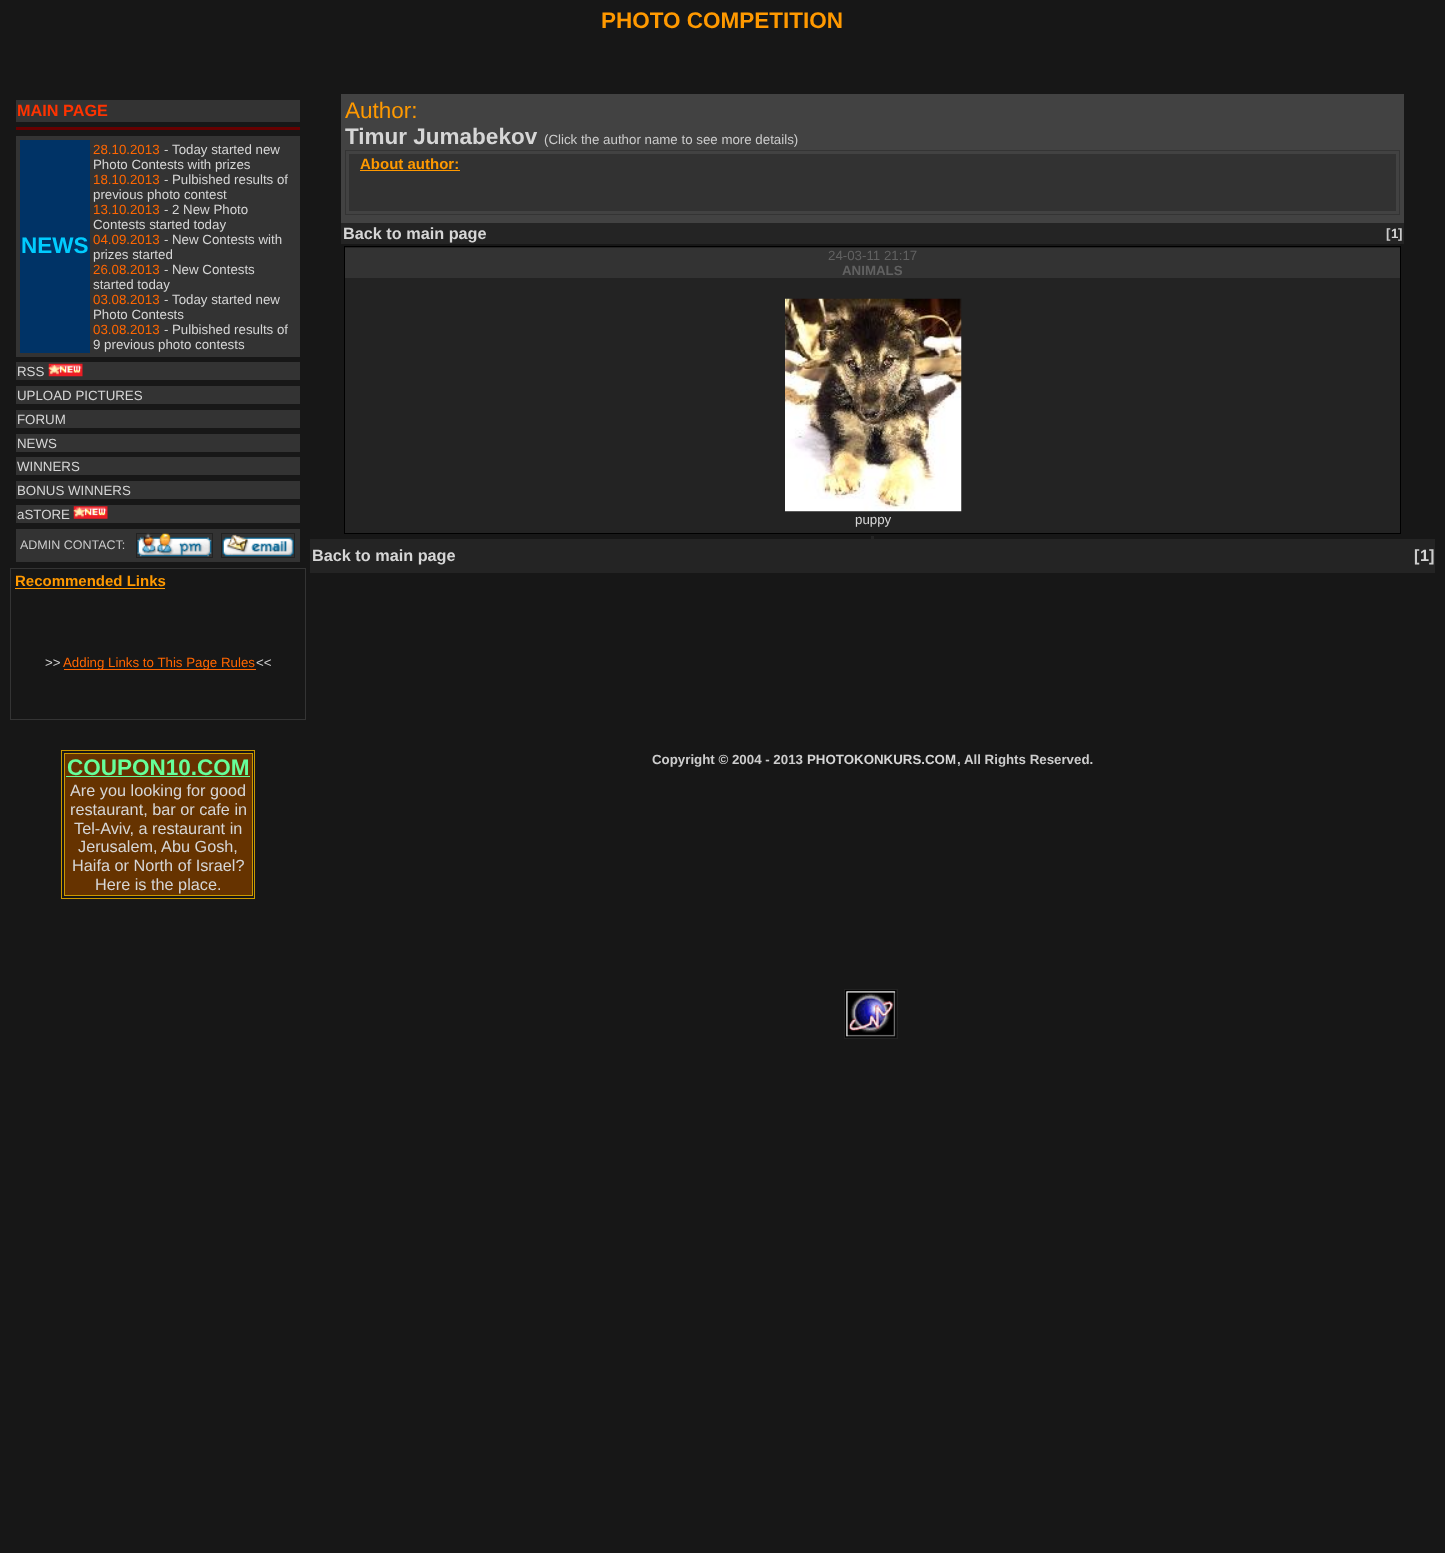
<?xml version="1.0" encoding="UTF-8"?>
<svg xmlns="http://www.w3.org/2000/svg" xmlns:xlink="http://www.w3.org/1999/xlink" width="1445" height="1553">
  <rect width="100%" height="100%" fill="#171717" />
  <rect x="16" y="100" width="284" height="22" fill="#333333" />
  <rect x="15.5" y="126.5" width="285" height="4" fill="#660000" stroke="#171717" />
  <rect x="16" y="136" width="284" height="221" fill="#333333" />
  <rect x="20" y="140" width="70" height="213" fill="#003366" />
  <rect x="16" y="362" width="284" height="18" fill="#333333" />
  <image x="48" y="363" width="35" height="14" xlink:href="image1.png" />
  <rect x="16" y="386" width="284" height="18" fill="#333333" />
  <rect x="16" y="410" width="284" height="18" fill="#333333" />
  <rect x="16" y="434" width="284" height="18" fill="#333333" />
  <rect x="16" y="457" width="284" height="18" fill="#333333" />
  <rect x="16" y="481" width="284" height="18" fill="#333333" />
  <rect x="16" y="505" width="284" height="18" fill="#333333" />
  <image x="73" y="506" width="35" height="13" xlink:href="image2.png" />
  <rect x="16" y="529" width="284" height="33" fill="#333333" />
  <rect x="136.5" y="533.5" width="76" height="24" fill="none" stroke="#222222" />
  <image x="137" y="533" width="75" height="24" xlink:href="image3.png" />
  <rect x="221.5" y="533.5" width="73" height="24" fill="none" stroke="#222222" />
  <image x="222" y="534" width="72" height="23" xlink:href="image4.png" />
  <rect x="10.5" y="568.5" width="295" height="151" fill="none" stroke="#343434" />
  <rect x="15" y="588" width="150" height="1" fill="#ff9900" />
  <rect x="64" y="669" width="192" height="1" fill="#ff6600" />
  <rect x="61.5" y="750.5" width="193" height="148" fill="none" stroke="#cc9900" />
  <rect x="64.5" y="753.5" width="188" height="142" fill="#663300" stroke="#cc9900" />
  <rect x="66" y="776" width="184" height="1" fill="#66ff99" />
  <rect x="341" y="94" width="1063" height="129" fill="#424242" />
  <rect x="345.5" y="150.5" width="1054" height="64" fill="none" stroke="#343434" />
  <rect x="349" y="154" width="1047" height="57" fill="#323232" />
  <rect x="360" y="170" width="100" height="1" fill="#ff9900" />
  <rect x="341" y="223" width="1063" height="21" fill="#242424" />
  <rect x="344.5" y="246.5" width="1056" height="287" fill="#232323" stroke="#000000" />
  <rect x="345" y="248" width="1055" height="30" fill="#333333" />
  <image x="785" y="298" width="177" height="214" xlink:href="image5.png" />
  <rect x="871" y="536" width="3" height="3" fill="#242424" />
  <rect x="310" y="539" width="1125" height="34" fill="#242424" />
  <rect x="844.5" y="989.5" width="53" height="49" fill="none" stroke="#222222" />
  <image x="845" y="990" width="52" height="48" xlink:href="image6.png" />
  <text x="601" y="28" style="font-family: Liberation Sans; font-size: 22.5px; font-weight: bold; fill: #ff9900">PHOTO COMPETITION</text>
  <text x="17" y="116" style="font-family: Liberation Sans; font-size: 16.25px; font-weight: bold; fill: #ff3300">MAIN PAGE</text>
  <text x="21" y="253" style="font-family: Liberation Sans; font-size: 22.5px; font-weight: bold; fill: #00ccff">NEWS</text>
  <text x="93" y="154" style="font-family: Liberation Sans; font-size: 13.3px; fill: #ff6600">28.10.2013</text>
  <text x="164" y="154" style="font-family: Liberation Sans; font-size: 13.3px; fill: #cccccc">-</text>
  <text x="172" y="154" style="font-family: Liberation Sans; font-size: 13.3px; fill: #d6d6d6">Today started new</text>
  <text x="93" y="169" style="font-family: Liberation Sans; font-size: 13.3px; fill: #d6d6d6">Photo Contests with prizes</text>
  <text x="93" y="184" style="font-family: Liberation Sans; font-size: 13.3px; fill: #ff6600">18.10.2013</text>
  <text x="164" y="184" style="font-family: Liberation Sans; font-size: 13.3px; fill: #cccccc">-</text>
  <text x="172" y="184" style="font-family: Liberation Sans; font-size: 13.3px; fill: #d6d6d6">Pulbished results of</text>
  <text x="93" y="199" style="font-family: Liberation Sans; font-size: 13.3px; fill: #d6d6d6">previous photo contest</text>
  <text x="93" y="214" style="font-family: Liberation Sans; font-size: 13.3px; fill: #ff6600">13.10.2013</text>
  <text x="164" y="214" style="font-family: Liberation Sans; font-size: 13.3px; fill: #cccccc">-</text>
  <text x="172" y="214" style="font-family: Liberation Sans; font-size: 13.3px; fill: #d6d6d6">2 New Photo</text>
  <text x="93" y="229" style="font-family: Liberation Sans; font-size: 13.3px; fill: #d6d6d6">Contests started today</text>
  <text x="93" y="244" style="font-family: Liberation Sans; font-size: 13.3px; fill: #ff6600">04.09.2013</text>
  <text x="164" y="244" style="font-family: Liberation Sans; font-size: 13.3px; fill: #cccccc">-</text>
  <text x="172" y="244" style="font-family: Liberation Sans; font-size: 13.3px; fill: #d6d6d6">New Contests with</text>
  <text x="93" y="259" style="font-family: Liberation Sans; font-size: 13.3px; fill: #d6d6d6">prizes started</text>
  <text x="93" y="274" style="font-family: Liberation Sans; font-size: 13.3px; fill: #ff6600">26.08.2013</text>
  <text x="164" y="274" style="font-family: Liberation Sans; font-size: 13.3px; fill: #cccccc">-</text>
  <text x="172" y="274" style="font-family: Liberation Sans; font-size: 13.3px; fill: #d6d6d6">New Contests</text>
  <text x="93" y="289" style="font-family: Liberation Sans; font-size: 13.3px; fill: #d6d6d6">started today</text>
  <text x="93" y="304" style="font-family: Liberation Sans; font-size: 13.3px; fill: #ff6600">03.08.2013</text>
  <text x="164" y="304" style="font-family: Liberation Sans; font-size: 13.3px; fill: #cccccc">-</text>
  <text x="172" y="304" style="font-family: Liberation Sans; font-size: 13.3px; fill: #d6d6d6">Today started new</text>
  <text x="93" y="319" style="font-family: Liberation Sans; font-size: 13.3px; fill: #d6d6d6">Photo Contests</text>
  <text x="93" y="334" style="font-family: Liberation Sans; font-size: 13.3px; fill: #ff6600">03.08.2013</text>
  <text x="164" y="334" style="font-family: Liberation Sans; font-size: 13.3px; fill: #cccccc">-</text>
  <text x="172" y="334" style="font-family: Liberation Sans; font-size: 13.3px; fill: #d6d6d6">Pulbished results of</text>
  <text x="93" y="349" style="font-family: Liberation Sans; font-size: 13.3px; fill: #d6d6d6">9 previous photo contests</text>
  <text x="17" y="376" style="font-family: Liberation Sans; font-size: 13.3px; fill: #d6d6d6">RSS</text>
  <text x="17" y="400" style="font-family: Liberation Sans; font-size: 13.3px; fill: #d6d6d6">UPLOAD PICTURES</text>
  <text x="17" y="424" style="font-family: Liberation Sans; font-size: 13.3px; fill: #d6d6d6">FORUM</text>
  <text x="17" y="448" style="font-family: Liberation Sans; font-size: 13.3px; fill: #d6d6d6">NEWS</text>
  <text x="17" y="471" style="font-family: Liberation Sans; font-size: 13.3px; fill: #d6d6d6">WINNERS</text>
  <text x="17" y="495" style="font-family: Liberation Sans; font-size: 13.3px; fill: #d6d6d6">BONUS WINNERS</text>
  <text x="17" y="519" style="font-family: Liberation Sans; font-size: 13.3px; fill: #d6d6d6">aSTORE</text>
  <text x="20" y="549" style="font-family: Liberation Sans; font-size: 12.5px; fill: #cccccc">ADMIN CONTACT:</text>
  <text x="15" y="586" style="font-family: Liberation Sans; font-size: 15px; font-weight: bold; fill: #ff9900">Recommended Links</text>
  <text x="45" y="667" style="font-family: Liberation Sans; font-size: 13.3px; fill: #d6d6d6">&gt;&gt;</text>
  <text x="63" y="667" style="font-family: Liberation Sans; font-size: 13.3px; fill: #ff6600">Adding Links to This Page Rules</text>
  <text x="256" y="667" style="font-family: Liberation Sans; font-size: 13.3px; fill: #d6d6d6">&lt;&lt;</text>
  <text x="67" y="775" style="font-family: Liberation Sans; font-size: 22.5px; font-weight: bold; fill: #66ff99">COUPON10.COM</text>
  <text x="70" y="796" style="font-family: Liberation Sans; font-size: 16.25px; fill: #d6d6d6">Are you looking for good</text>
  <text x="70" y="815" style="font-family: Liberation Sans; font-size: 16.25px; fill: #d6d6d6">restaurant, bar or cafe in</text>
  <text x="74" y="834" style="font-family: Liberation Sans; font-size: 16.25px; fill: #d6d6d6">Tel-Aviv, a restaurant in</text>
  <text x="78" y="852" style="font-family: Liberation Sans; font-size: 16.25px; fill: #d6d6d6">Jerusalem, Abu Gosh,</text>
  <text x="72" y="871" style="font-family: Liberation Sans; font-size: 16.25px; fill: #d6d6d6">Haifa or North of Israel?</text>
  <text x="95" y="890" style="font-family: Liberation Sans; font-size: 16.25px; fill: #d6d6d6">Here is the place.</text>
  <text x="345" y="118" style="font-family: Liberation Sans; font-size: 22.5px; fill: #ff9900">Author:</text>
  <text x="345" y="144" style="font-family: Liberation Sans; font-size: 22.5px; font-weight: bold; fill: #d6d6d6">Timur Jumabekov</text>
  <text x="544" y="144" style="font-family: Liberation Sans; font-size: 13.3px; fill: #cccccc">(Click the author name to see more details)</text>
  <text x="360" y="169" style="font-family: Liberation Sans; font-size: 15px; font-weight: bold; fill: #ff9900">About author:</text>
  <text x="343" y="239" style="font-family: Liberation Sans; font-size: 16.25px; font-weight: bold; fill: #d6d6d6">Back to main page</text>
  <text x="1386" y="238" style="font-family: Liberation Sans; font-size: 13.3px; font-weight: bold; fill: #cccccc">[</text>
  <text x="1391" y="238" style="font-family: Liberation Sans; font-size: 13.3px; font-weight: bold; fill: #d6d6d6">1</text>
  <text x="1398" y="238" style="font-family: Liberation Sans; font-size: 13.3px; font-weight: bold; fill: #cccccc">]</text>
  <text x="828" y="260" style="font-family: Liberation Sans; font-size: 13.3px; fill: #616161">24-03-11 21:17</text>
  <text x="842" y="275" style="font-family: Liberation Sans; font-size: 13.3px; font-weight: bold; fill: #616161">ANIMALS</text>
  <text x="855" y="524" style="font-family: Liberation Sans; font-size: 13.3px; fill: #d6d6d6">puppy</text>
  <text x="312" y="561" style="font-family: Liberation Sans; font-size: 16.25px; font-weight: bold; fill: #d6d6d6">Back to main page</text>
  <text x="1414" y="561" style="font-family: Liberation Sans; font-size: 16.25px; font-weight: bold; fill: #cccccc">[</text>
  <text x="1420" y="561" style="font-family: Liberation Sans; font-size: 16.25px; font-weight: bold; fill: #d6d6d6">1</text>
  <text x="1429" y="561" style="font-family: Liberation Sans; font-size: 16.25px; font-weight: bold; fill: #cccccc">]</text>
  <text x="652" y="764" style="font-family: Liberation Sans; font-size: 13.3px; font-weight: bold; fill: #cccccc">Copyright © 2004 - 2013</text>
  <text x="807" y="764" style="font-family: Liberation Sans; font-size: 13.3px; font-weight: bold; fill: #d6d6d6">PHOTOKONKURS.COM</text>
  <text x="957" y="764" style="font-family: Liberation Sans; font-size: 13.3px; font-weight: bold; fill: #cccccc">, All Rights Reserved.</text>
</svg>
